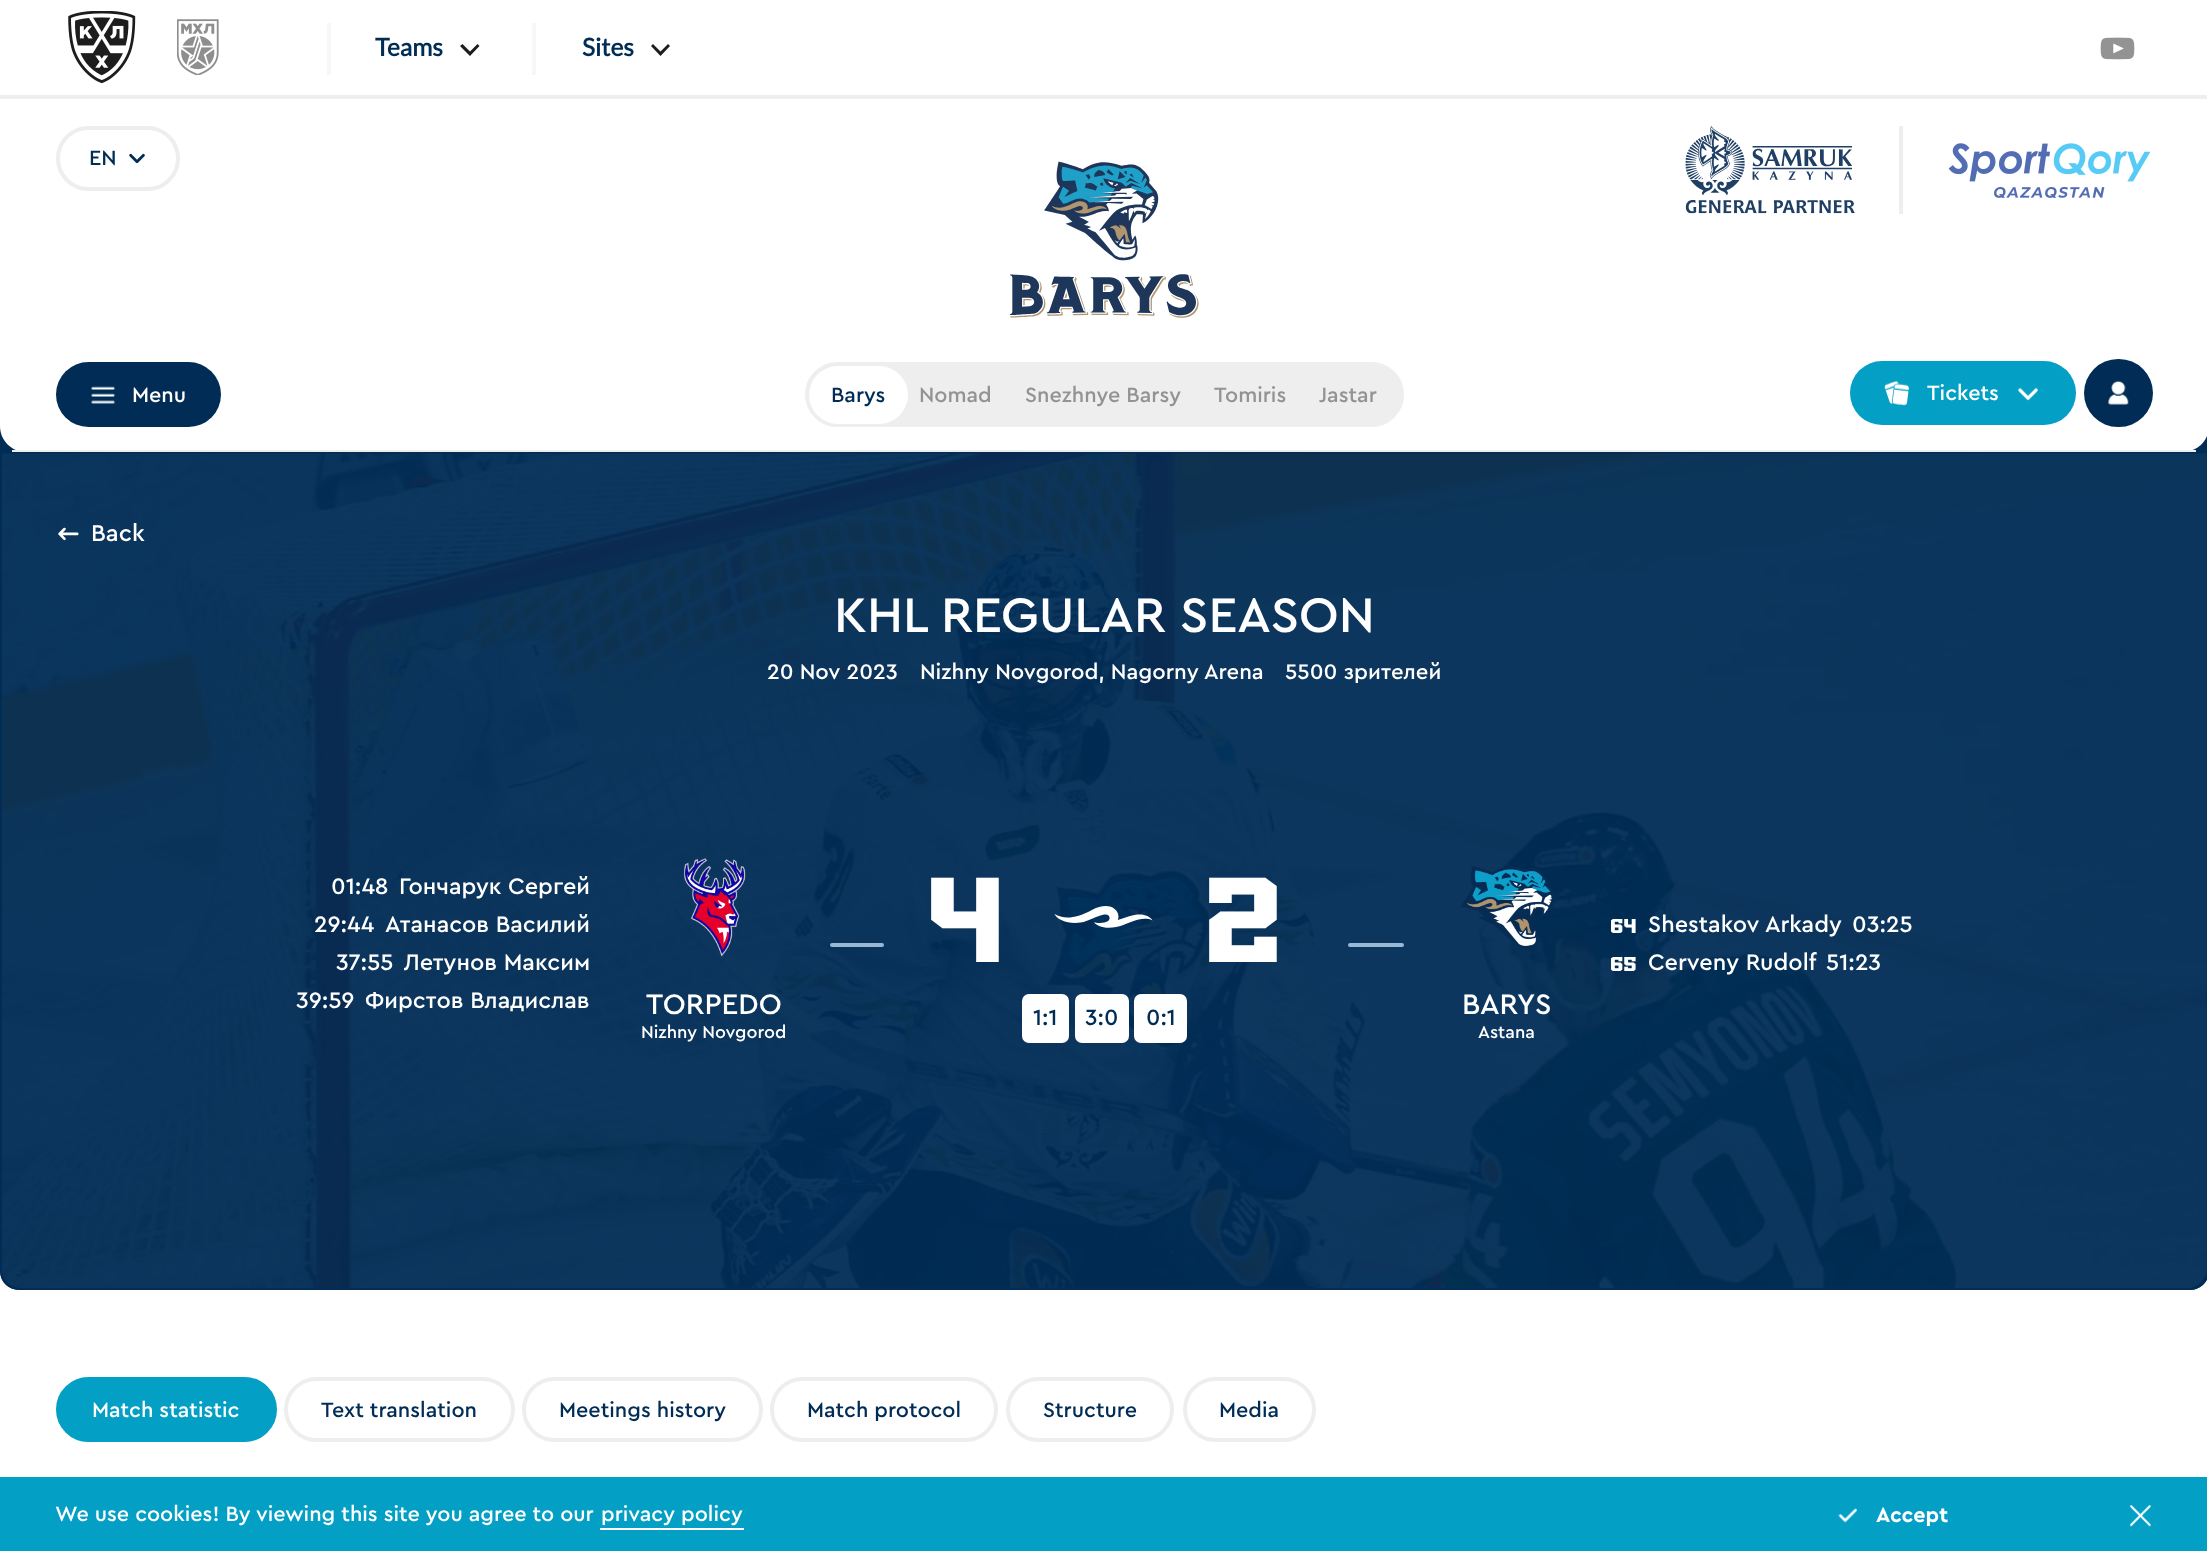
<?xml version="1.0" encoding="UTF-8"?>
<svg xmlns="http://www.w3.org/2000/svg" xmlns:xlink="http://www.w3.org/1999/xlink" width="2207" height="1551">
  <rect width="100%" height="100%" fill="#ffffff" />
  <path d="M 0 424 h 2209 v 847 c 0 10.5 -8.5 19 -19 19 h -2171 c -10.5 0 -19 -8.5 -19 -19 z" fill="#002c55" />
  <path d="M 0 98 h 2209 v 328 c 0 14.5 -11.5 26 -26 26 h -2157 c -14.5 0 -26 -11.5 -26 -26 z" fill="#ffffff" />
  <rect y="95" width="2207" height="4" fill="#eeeeee" />
  <image x="68" y="11" width="68" height="73" xlink:href="image1.png" />
  <image x="177" y="19" width="42" height="56" xlink:href="image2.png" />
  <rect x="327" y="23" width="4" height="52" fill="#f7f7f7" />
  <path d="M 477.5 44 l -7.5 7.5 l -7.5 -7.5 l -2.5 2 l 10 10 l 9.5 -10 z" fill="#1d1d1d" />
  <rect x="532" y="23" width="4" height="52" fill="#f7f7f7" />
  <path d="M 668 44 l -7.5 7.5 l -7.5 -7.5 l -2 2 l 9.5 10 l 9.5 -10 z" fill="#1d1d1d" />
  <image x="2100" y="37" width="35" height="23" xlink:href="image3.png" />
  <rect x="12" y="450" width="2184" height="2" fill="#eeeeee" />
  <rect x="58" y="128" width="120" height="61" rx="30.5" fill="none" stroke="#eeeeee" stroke-width="4" />
  <image x="129" y="153" width="16" height="11" xlink:href="image4.png" />
  <rect x="56" y="362" width="165" height="65" rx="32.5" fill="#002c55" />
  <image x="91" y="386" width="25" height="18" xlink:href="image5.png" />
  <image x="1009" y="161" width="190" height="157" xlink:href="image6.png" />
  <rect x="807" y="364" width="595" height="61" rx="30.5" fill="#eeeeee" stroke="#eeeeee" stroke-width="4" />
  <rect x="809" y="366" width="99" height="58" rx="29" fill="#ffffff" />
  <image x="1685" y="126" width="170" height="88" xlink:href="image7.png" />
  <rect x="1899" y="126" width="4" height="88" fill="#eeeeee" />
  <image x="1948" y="143" width="203" height="55" xlink:href="image8.png" />
  <rect x="1850" y="361" width="226" height="64" rx="32" fill="#049fc5" />
  <image x="1884" y="380" width="25" height="26" xlink:href="image9.png" />
  <image x="2018" y="387" width="20" height="14" xlink:href="image10.png" />
  <rect x="2084" y="359" width="69" height="68" rx="34" fill="#002c55" />
  <image x="2108" y="380" width="21" height="25" xlink:href="image11.png" />
  <image x="1" y="453" width="2206" height="835" xlink:href="image12.png" />
  <path d="M 0 452 h 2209 v 819 c 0 10.5 -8.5 19 -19 19 h -2171 c -10.5 0 -19 -8.5 -19 -19 z" fill="#002c55" fill-opacity="0.95" />
  <image x="58" y="527" width="21" height="14" xlink:href="image13.png" />
  <rect x="830" y="943" width="54" height="4" rx="2" fill="#98b8d6" />
  <image x="684" y="858" width="62" height="99" xlink:href="image14.png" />
  <image x="1054" y="906" width="99" height="22" xlink:href="image15.png" />
  <rect x="1022" y="994" width="47" height="49" rx="7" fill="#ffffff" />
  <rect x="1075" y="994" width="54" height="49" rx="7" fill="#ffffff" />
  <rect x="1134" y="994" width="53" height="49" rx="7" fill="#ffffff" />
  <rect x="1348" y="943" width="56" height="4" rx="2" fill="#98b8d6" />
  <image x="1461" y="866" width="94" height="82" xlink:href="image16.png" />
  <rect x="58" y="1379" width="217" height="61" rx="30.5" fill="#049fc5" stroke="#049fc5" stroke-width="4" />
  <rect x="286" y="1379" width="227" height="61" rx="30.5" fill="none" stroke="#eeeeee" stroke-width="4" />
  <rect x="524" y="1379" width="237" height="61" rx="30.5" fill="none" stroke="#eeeeee" stroke-width="4" />
  <rect x="772" y="1379" width="224" height="61" rx="30.5" fill="none" stroke="#eeeeee" stroke-width="4" />
  <rect x="1008" y="1379" width="164" height="61" rx="30.5" fill="none" stroke="#eeeeee" stroke-width="4" />
  <rect x="1185" y="1379" width="129" height="61" rx="30.5" fill="none" stroke="#eeeeee" stroke-width="4" />
  <rect y="1477" width="2207" height="74" fill="#049fc5" />
  <rect x="600" y="1528" width="144" height="2" fill="#ffffff" />
  <image x="1838" y="1508" width="19" height="15" xlink:href="image17.png" />
  <image x="2130" y="1505" width="21" height="22" xlink:href="image18.png" />
  <text x="375" y="56" style="font-family: Lato; font-size: 24.5px; font-weight: bold; fill: #002c55">Teams</text>
  <text x="582" y="56" style="font-family: Lato; font-size: 24.5px; font-weight: bold; fill: #002c55">Sites</text>
  <text x="89" y="165" style="font-family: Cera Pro; font-size: 21.6px; font-weight: 500; fill: #002c55">EN</text>
  <text x="132" y="402" style="font-family: Cera Pro; font-size: 21.6px; font-weight: 500; fill: #ffffff">Menu</text>
  <text x="831" y="402" style="font-family: Cera Pro; font-size: 21.6px; font-weight: 500; fill: #002c55">Barys</text>
  <text x="919" y="402" style="font-family: Cera Pro; font-size: 21.6px; font-weight: 500; fill: #939393">Nomad</text>
  <text x="1025" y="402" style="font-family: Cera Pro; font-size: 21.6px; font-weight: 500; fill: #939393">Snezhnye Barsy</text>
  <text x="1214" y="402" style="font-family: Cera Pro; font-size: 21.6px; font-weight: 500; fill: #939393">Tomiris</text>
  <text x="1319" y="402" style="font-family: Cera Pro; font-size: 21.6px; font-weight: 500; fill: #939393">Jastar</text>
  <text x="1927" y="400" style="font-family: Cera Pro; font-size: 21.6px; font-weight: 500; fill: #ffffff">Tickets</text>
  <text x="91" y="541" style="font-family: Cera Pro; font-size: 24px; font-weight: 500; fill: #ffffff">Back</text>
  <text x="834" y="632" style="font-family: Cera Pro; font-size: 50.75px; font-weight: 500; fill: #ffffff">KHL REGULAR SEASON</text>
  <text x="767" y="679" style="font-family: Cera Pro; font-size: 22.1px; font-weight: 500; fill: #ffffff">20 Nov 2023</text>
  <text x="920" y="679" style="font-family: Cera Pro; font-size: 22.1px; font-weight: 500; fill: #ffffff">Nizhny Novgorod, Nagorny Arena</text>
  <text x="1285" y="679" style="font-family: Cera Pro; font-size: 22.1px; font-weight: 500; fill: #ffffff">5500 зрителей</text>
  <text x="331" y="894" style="font-family: Cera Pro; font-size: 23.5px; font-weight: 500; fill: #ffffff">01:48</text>
  <text x="399" y="894" style="font-family: Cera Pro; font-size: 23.5px; font-weight: 500; fill: #ffffff">Гончарук Сергей</text>
  <text x="314" y="932" style="font-family: Cera Pro; font-size: 23.5px; font-weight: 500; fill: #ffffff">29:44</text>
  <text x="385" y="932" style="font-family: Cera Pro; font-size: 23.5px; font-weight: 500; fill: #ffffff">Атанасов Василий</text>
  <text x="336" y="970" style="font-family: Cera Pro; font-size: 23.5px; font-weight: 500; fill: #ffffff">37:55</text>
  <text x="404" y="970" style="font-family: Cera Pro; font-size: 23.5px; font-weight: 500; fill: #ffffff">Летунов Максим</text>
  <text x="296" y="1008" style="font-family: Cera Pro; font-size: 23.5px; font-weight: 500; fill: #ffffff">39:59</text>
  <text x="365" y="1008" style="font-family: Cera Pro; font-size: 23.5px; font-weight: 500; fill: #ffffff">Фирстов Владислав</text>
  <text x="646" y="1014" style="font-family: Cera Pro; font-size: 29.5px; font-weight: 500; fill: #ffffff">TORPEDO</text>
  <text x="641" y="1038" style="font-family: Cera Pro; font-size: 18px; font-weight: 500; fill: #ffffff">Nizhny Novgorod</text>
  <text x="925" y="962" style="font-family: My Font; font-size: 144px; fill: #ffffff">4</text>
  <text x="1203" y="962" style="font-family: My Font; font-size: 144px; fill: #ffffff">2</text>
  <text x="1033" y="1025" style="font-family: Cera Pro; font-size: 23px; font-weight: 500; fill: #002c55">1:1</text>
  <text x="1085" y="1025" style="font-family: Cera Pro; font-size: 23px; font-weight: 500; fill: #002c55">3:0</text>
  <text x="1146" y="1025" style="font-family: Cera Pro; font-size: 23px; font-weight: 500; fill: #002c55">0:1</text>
  <text x="1610" y="933" style="font-family: My Font; font-size: 24px; fill: #ffffff">64</text>
  <text x="1648" y="932" style="font-family: Cera Pro; font-size: 23.5px; font-weight: 500; fill: #ffffff">Shestakov Arkady</text>
  <text x="1852" y="932" style="font-family: Cera Pro; font-size: 23.5px; font-weight: 500; fill: #ffffff">03:25</text>
  <text x="1610" y="971" style="font-family: My Font; font-size: 24px; fill: #ffffff">65</text>
  <text x="1648" y="970" style="font-family: Cera Pro; font-size: 23.5px; font-weight: 500; fill: #ffffff">Cerveny Rudolf</text>
  <text x="1826" y="970" style="font-family: Cera Pro; font-size: 23.5px; font-weight: 500; fill: #ffffff">51:23</text>
  <text x="1462" y="1014" style="font-family: Cera Pro; font-size: 29.5px; font-weight: 500; fill: #ffffff">BARYS</text>
  <text x="1478" y="1038" style="font-family: Cera Pro; font-size: 18px; font-weight: 500; fill: #ffffff">Astana</text>
  <text x="92" y="1417" style="font-family: Cera Pro; font-size: 21.6px; font-weight: 500; fill: #ffffff">Match statistic</text>
  <text x="321" y="1417" style="font-family: Cera Pro; font-size: 21.6px; font-weight: 500; fill: #002c55">Text translation</text>
  <text x="559" y="1417" style="font-family: Cera Pro; font-size: 21.6px; font-weight: 500; fill: #002c55">Meetings history</text>
  <text x="807" y="1417" style="font-family: Cera Pro; font-size: 21.6px; font-weight: 500; fill: #002c55">Match protocol</text>
  <text x="1043" y="1417" style="font-family: Cera Pro; font-size: 21.6px; font-weight: 500; fill: #002c55">Structure</text>
  <text x="1219" y="1417" style="font-family: Cera Pro; font-size: 21.6px; font-weight: 500; fill: #002c55">Media</text>
  <text x="55" y="1521" style="font-family: Cera Pro; font-size: 21.6px; font-weight: 500; fill: #ffffff">We use cookies! By viewing this site you agree to our</text>
  <text x="601" y="1521" style="font-family: Cera Pro; font-size: 21.6px; font-weight: 500; fill: #ffffff">privacy policy</text>
  <text x="1876" y="1522" style="font-family: Cera Pro; font-size: 21.6px; font-weight: bold; fill: #ffffff">Accept</text>
</svg>
